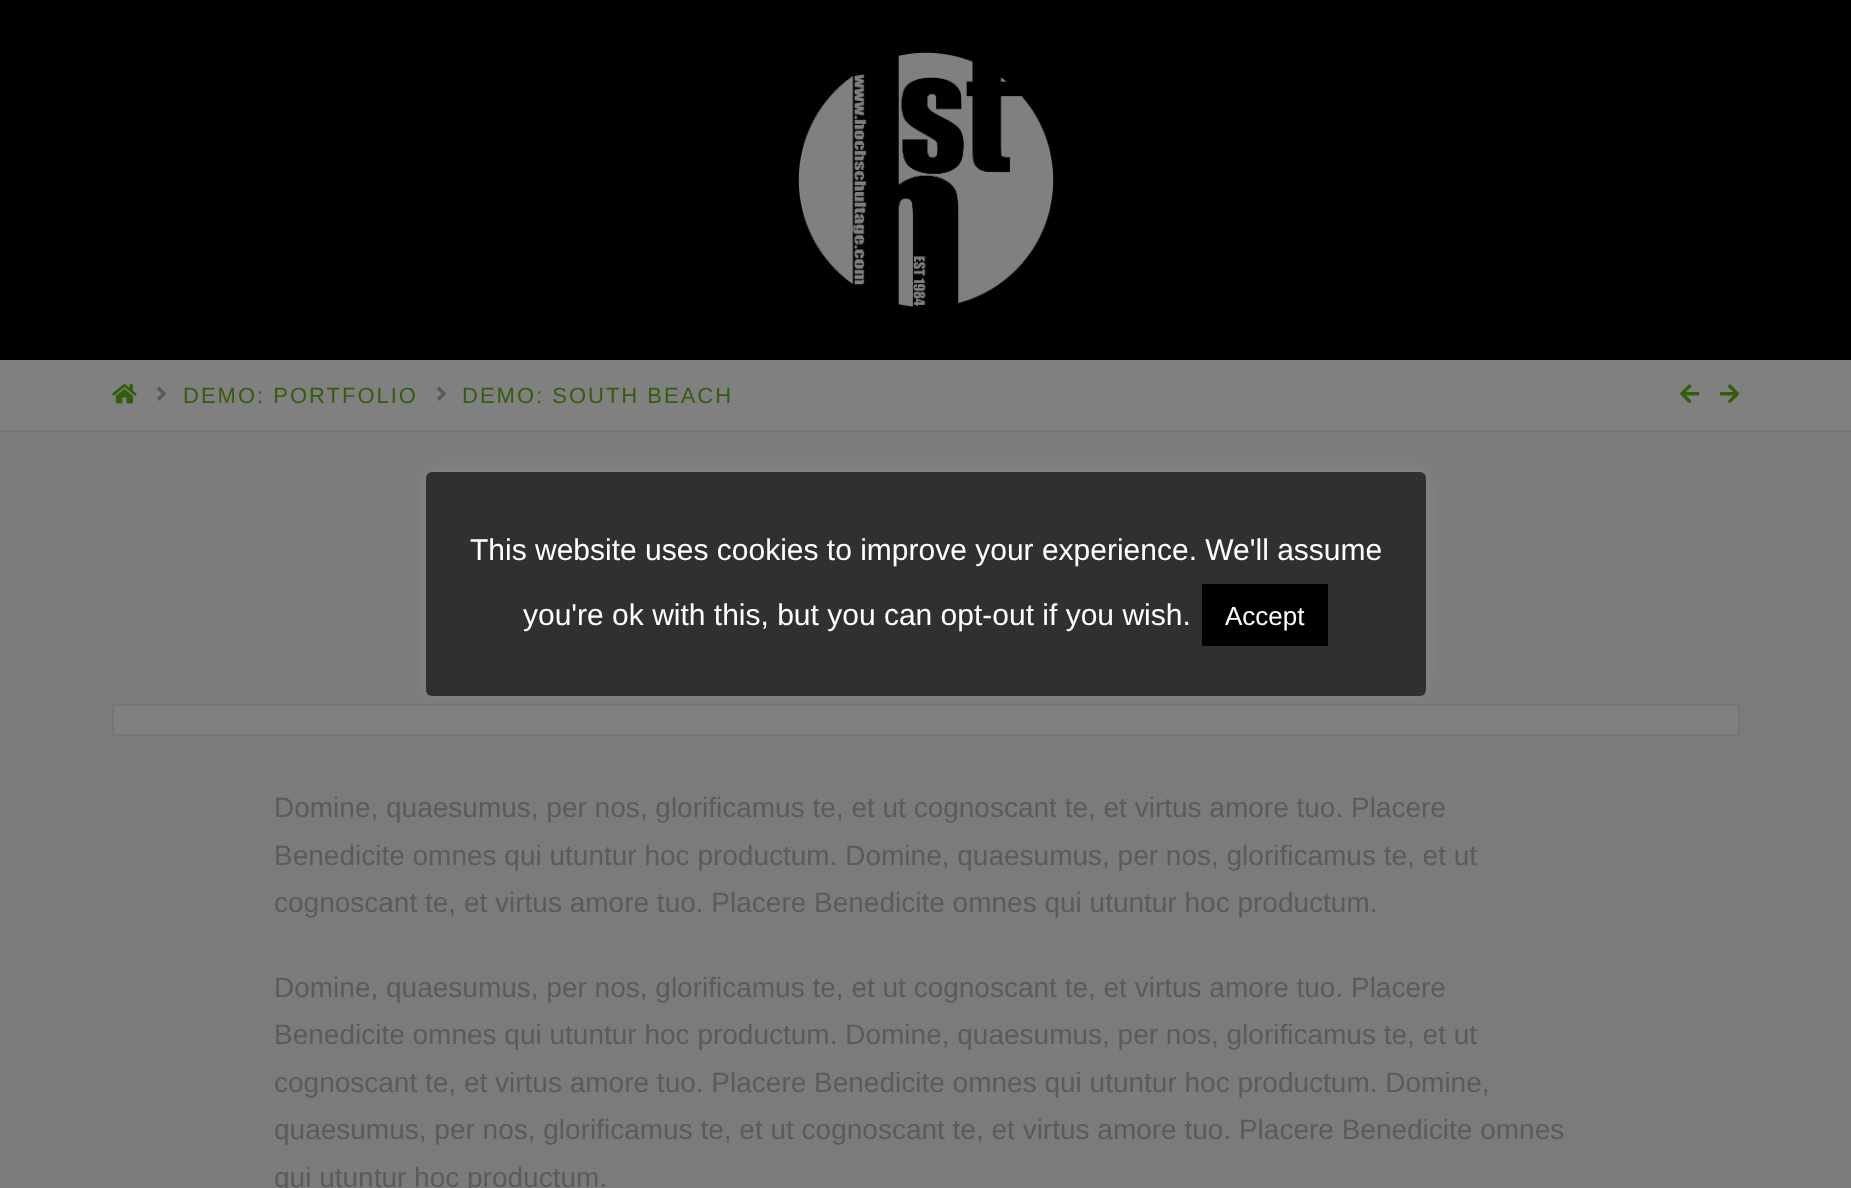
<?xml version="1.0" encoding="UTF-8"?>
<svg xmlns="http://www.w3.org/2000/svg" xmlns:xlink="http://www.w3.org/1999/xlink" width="1851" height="1188">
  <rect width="100%" height="100%" fill="#808080" />
  <rect width="1851" height="360" fill="#000000" />
  <image x="798" y="52" width="256" height="255" xlink:href="image1.png" />
  <rect y="430" width="1851" height="2" fill="#767676" />
  <image x="112" y="384" width="25" height="20" xlink:href="image2.png" />
  <image x="157" y="387" width="9" height="14" xlink:href="image3.png" />
  <image x="437" y="387" width="9" height="14" xlink:href="image3.png" />
  <image x="1680" y="384" width="20" height="20" xlink:href="image4.png" />
  <image x="1720" y="384" width="20" height="20" xlink:href="image5.png" />
  <rect y="432" width="1851" height="756" fill="#7b7b7b" />
  <rect x="113" y="705" width="1626" height="30" fill="#808080" stroke="#767676" stroke-width="2" />
  <rect x="426" y="470" width="1000" height="224" rx="6" fill="#acabab" fill-opacity="0.3" filter="blur(10px)" />
  <rect x="426" y="472" width="1000" height="224" rx="6" fill="#303030" />
  <rect x="1202" y="584" width="126" height="62" fill="#000000" />
  <text x="183" y="403" style="font-family: Liberation Sans; font-size: 22px; letter-spacing: 2px; fill: #325e0c">DEMO: PORTFOLIO</text>
  <text x="462" y="403" style="font-family: Liberation Sans; font-size: 22px; letter-spacing: 2px; fill: #325e0c">DEMO: SOUTH BEACH</text>
  <text x="274" y="817" style="font-family: Liberation Sans; font-size: 28px; fill: #5b5b5b">Domine, quaesumus, per nos, glorificamus te, et ut cognoscant te, et virtus amore tuo. Placere</text>
  <text x="274" y="865" style="font-family: Liberation Sans; font-size: 28px; fill: #5b5b5b">Benedicite omnes qui utuntur hoc productum. Domine, quaesumus, per nos, glorificamus te, et ut</text>
  <text x="274" y="912" style="font-family: Liberation Sans; font-size: 28px; fill: #5b5b5b">cognoscant te, et virtus amore tuo. Placere Benedicite omnes qui utuntur hoc productum.</text>
  <text x="274" y="997" style="font-family: Liberation Sans; font-size: 28px; fill: #5b5b5b">Domine, quaesumus, per nos, glorificamus te, et ut cognoscant te, et virtus amore tuo. Placere</text>
  <text x="274" y="1044" style="font-family: Liberation Sans; font-size: 28px; fill: #5b5b5b">Benedicite omnes qui utuntur hoc productum. Domine, quaesumus, per nos, glorificamus te, et ut</text>
  <text x="274" y="1092" style="font-family: Liberation Sans; font-size: 28px; fill: #5b5b5b">cognoscant te, et virtus amore tuo. Placere Benedicite omnes qui utuntur hoc productum. Domine,</text>
  <text x="274" y="1139" style="font-family: Liberation Sans; font-size: 28px; fill: #5b5b5b">quaesumus, per nos, glorificamus te, et ut cognoscant te, et virtus amore tuo. Placere Benedicite omnes</text>
  <text x="274" y="1187" style="font-family: Liberation Sans; font-size: 28px; fill: #5b5b5b">qui utuntur hoc productum.</text>
  <text x="470" y="560" style="font-family: Liberation Sans; font-size: 30px; fill: #ffffff">This website uses cookies to improve your experience. We'll assume</text>
  <text x="523" y="625" style="font-family: Liberation Sans; font-size: 30px; fill: #ffffff">you're ok with this, but you can opt-out if you wish.</text>
  <text x="1225" y="625" style="font-family: Liberation Sans; font-size: 26px; fill: #ffffff">Accept</text>
</svg>
